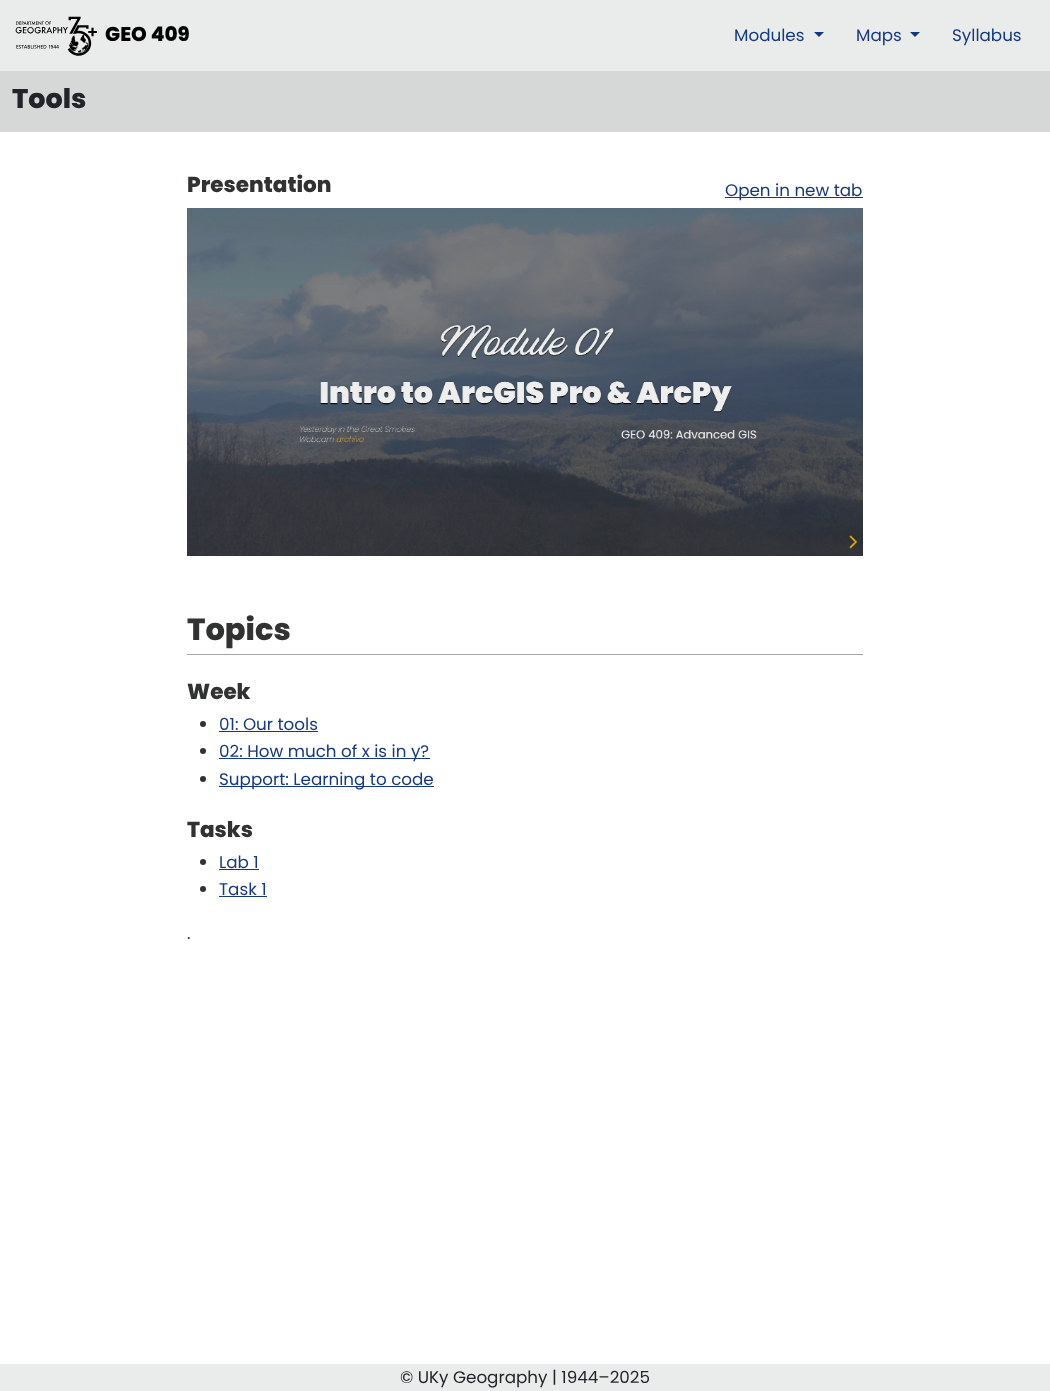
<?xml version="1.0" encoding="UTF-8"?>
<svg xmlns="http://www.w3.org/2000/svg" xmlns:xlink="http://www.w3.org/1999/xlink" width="1050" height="1391">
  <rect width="100%" height="100%" fill="#ffffff" />
  <rect width="1050" height="71" fill="#eaeceb" />
  <image x="15" y="16" width="82" height="40" xlink:href="image1.png" />
  <path d="M 814 32 h 10 l -5 5 z" fill="#15397f" />
  <path d="M 910 32 h 10 l -5 5 z" fill="#15397f" />
  <rect y="71" width="1050" height="61" fill="#d6d8d7" />
  <rect x="725" y="197" width="138" height="1" fill="#15397f" />
  <image x="187" y="208" width="676" height="348" xlink:href="image2.png" />
  <rect x="187" y="654" width="676" height="1" fill="#a4a6a5" />
  <circle cx="203" cy="724" r="3" fill="#313332" />
  <rect x="219" y="731" width="99" height="1" fill="#15397f" />
  <circle cx="203" cy="751" r="3" fill="#313332" />
  <rect x="219" y="758" width="211" height="1" fill="#15397f" />
  <circle cx="203" cy="779" r="3" fill="#313332" />
  <rect x="219" y="786" width="215" height="1" fill="#15397f" />
  <circle cx="203" cy="862" r="3" fill="#313332" />
  <rect x="219" y="869" width="40" height="1" fill="#15397f" />
  <circle cx="203" cy="889" r="3" fill="#313332" />
  <rect x="219" y="896" width="48" height="1" fill="#15397f" />
  <rect y="1364" width="1050" height="27" fill="#eaeceb" />
  <text x="105" y="41" style="font-family: Poppins; font-size: 20px; font-weight: 800; fill: #000000">GEO 409</text>
  <text x="734" y="41" style="font-family: Poppins; font-size: 16.75px; fill: #15397f">Modules</text>
  <text x="856" y="41" style="font-family: Poppins; font-size: 16.75px; fill: #15397f">Maps</text>
  <text x="952" y="41" style="font-family: Poppins; font-size: 16.75px; fill: #15397f">Syllabus</text>
  <text x="12" y="108" style="font-family: Poppins; font-size: 27px; font-weight: 800; fill: #212529">Tools</text>
  <text x="187" y="192" style="font-family: Poppins; font-size: 21.5px; font-weight: 800; fill: #313332">Presentation</text>
  <text x="725" y="196" style="font-family: Poppins; font-size: 16.75px; fill: #15397f">Open in new tab</text>
  <text x="187" y="640" style="font-family: Poppins; font-size: 30.5px; font-weight: 800; fill: #313332">Topics</text>
  <text x="187" y="699" style="font-family: Poppins; font-size: 21.5px; font-weight: 800; fill: #313332">Week</text>
  <text x="219" y="730" style="font-family: Poppins; font-size: 16.75px; fill: #15397f">01: Our tools</text>
  <text x="219" y="757" style="font-family: Poppins; font-size: 16.75px; fill: #15397f">02: How much of x is in y?</text>
  <text x="219" y="785" style="font-family: Poppins; font-size: 16.75px; fill: #15397f">Support: Learning to code</text>
  <text x="187" y="837" style="font-family: Poppins; font-size: 21.5px; font-weight: 800; fill: #313332">Tasks</text>
  <text x="219" y="868" style="font-family: Poppins; font-size: 16.75px; fill: #15397f">Lab 1</text>
  <text x="219" y="895" style="font-family: Poppins; font-size: 16.75px; fill: #15397f">Task 1</text>
  <text x="187" y="939" style="font-family: Poppins; font-size: 16.75px; fill: #313332">.</text>
  <text x="400" y="1383" style="font-family: Poppins; font-size: 16.75px; fill: #212529">© UKy Geography | 1944–2025</text>
</svg>
